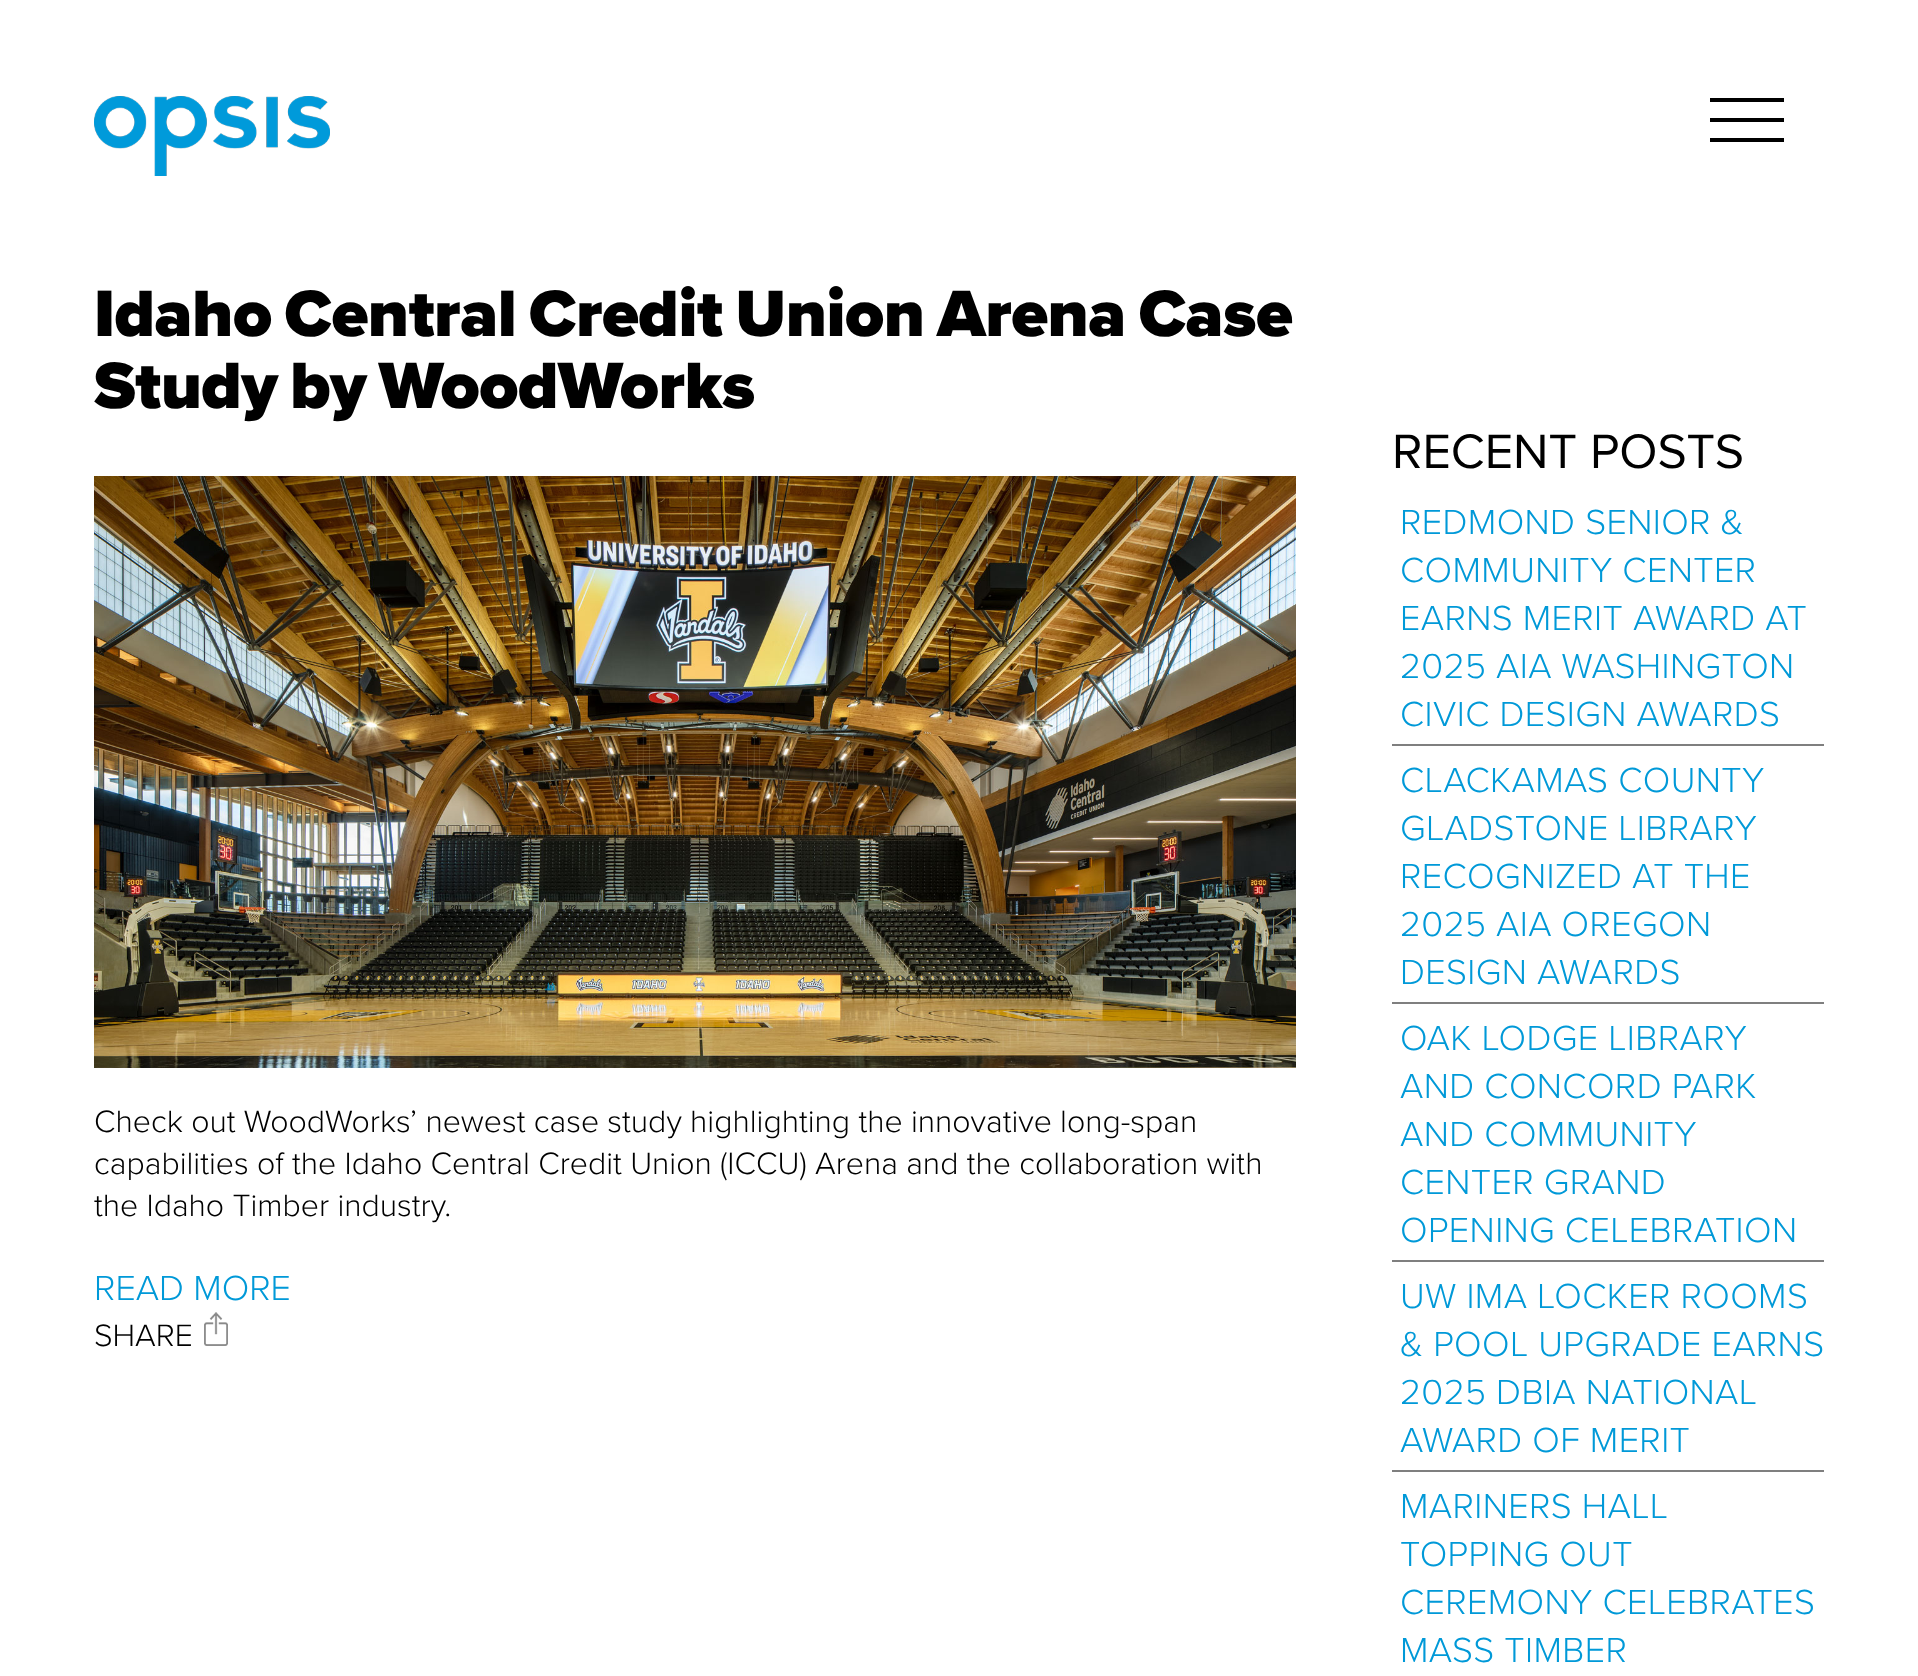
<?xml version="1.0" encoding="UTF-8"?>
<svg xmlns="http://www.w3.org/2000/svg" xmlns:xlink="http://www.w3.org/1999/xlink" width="1918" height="1676">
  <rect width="100%" height="100%" fill="#ffffff" />
  <image x="94" y="96" width="236" height="80" xlink:href="image1.png" />
  <rect x="1710" y="98" width="74" height="4" fill="#000000" />
  <rect x="1710" y="118" width="74" height="4" fill="#000000" />
  <rect x="1710" y="138" width="74" height="4" fill="#000000" />
  <image x="94" y="476" width="1202" height="592" xlink:href="image2.png" />
  <image x="204" y="1312" width="24" height="34" xlink:href="image3.png" />
  <rect x="1392" y="744" width="432" height="2" fill="#7f7f7f" />
  <rect x="1392" y="1002" width="432" height="2" fill="#7f7f7f" />
  <rect x="1392" y="1260" width="432" height="2" fill="#7f7f7f" />
  <rect x="1392" y="1470" width="432" height="2" fill="#7f7f7f" />
  <text x="94" y="336" word-spacing="-4" style="font-family: Proxima Nova; font-size: 68px; font-weight: 900; letter-spacing: -0.5px; fill: #000000">Idaho Central Credit Union Arena Case</text>
  <text x="94" y="408" word-spacing="-4" style="font-family: Proxima Nova; font-size: 68px; font-weight: 900; letter-spacing: -0.5px; fill: #000000">Study by WoodWorks</text>
  <text x="94" y="1132" style="font-family: Proxima Nova; font-size: 32px; font-weight: 300; fill: #000000">Check out WoodWorks’ newest case study highlighting the innovative long-span</text>
  <text x="94" y="1174" style="font-family: Proxima Nova; font-size: 32px; font-weight: 300; fill: #000000">capabilities of the Idaho Central Credit Union (ICCU) Arena and the collaboration with</text>
  <text x="94" y="1216" style="font-family: Proxima Nova; font-size: 32px; font-weight: 300; fill: #000000">the Idaho Timber industry.</text>
  <text x="94" y="1300" style="font-family: Proxima Nova; font-size: 36px; font-weight: 300; fill: #0099d8">READ MORE</text>
  <text x="94" y="1346" style="font-family: Proxima Nova; font-size: 32px; font-weight: 300; fill: #000000">SHARE</text>
  <text x="1392" y="468" style="font-family: Proxima Nova; font-size: 50px; fill: #000000">RECENT POSTS</text>
  <text x="1400" y="534" style="font-family: Proxima Nova; font-size: 36px; font-weight: 300; letter-spacing: 0.4px; fill: #0099d8">REDMOND SENIOR &amp;</text>
  <text x="1400" y="582" style="font-family: Proxima Nova; font-size: 36px; font-weight: 300; letter-spacing: 0.4px; fill: #0099d8">COMMUNITY CENTER</text>
  <text x="1400" y="630" style="font-family: Proxima Nova; font-size: 36px; font-weight: 300; letter-spacing: 0.4px; fill: #0099d8">EARNS MERIT AWARD AT</text>
  <text x="1400" y="678" style="font-family: Proxima Nova; font-size: 36px; font-weight: 300; letter-spacing: 0.4px; fill: #0099d8">2025 AIA WASHINGTON</text>
  <text x="1400" y="726" style="font-family: Proxima Nova; font-size: 36px; font-weight: 300; letter-spacing: 0.4px; fill: #0099d8">CIVIC DESIGN AWARDS</text>
  <text x="1400" y="792" style="font-family: Proxima Nova; font-size: 36px; font-weight: 300; letter-spacing: 0.4px; fill: #0099d8">CLACKAMAS COUNTY</text>
  <text x="1400" y="840" style="font-family: Proxima Nova; font-size: 36px; font-weight: 300; letter-spacing: 0.4px; fill: #0099d8">GLADSTONE LIBRARY</text>
  <text x="1400" y="888" style="font-family: Proxima Nova; font-size: 36px; font-weight: 300; letter-spacing: 0.4px; fill: #0099d8">RECOGNIZED AT THE</text>
  <text x="1400" y="936" style="font-family: Proxima Nova; font-size: 36px; font-weight: 300; letter-spacing: 0.4px; fill: #0099d8">2025 AIA OREGON</text>
  <text x="1400" y="984" style="font-family: Proxima Nova; font-size: 36px; font-weight: 300; letter-spacing: 0.4px; fill: #0099d8">DESIGN AWARDS</text>
  <text x="1400" y="1050" style="font-family: Proxima Nova; font-size: 36px; font-weight: 300; letter-spacing: 0.4px; fill: #0099d8">OAK LODGE LIBRARY</text>
  <text x="1400" y="1098" style="font-family: Proxima Nova; font-size: 36px; font-weight: 300; letter-spacing: 0.4px; fill: #0099d8">AND CONCORD PARK</text>
  <text x="1400" y="1146" style="font-family: Proxima Nova; font-size: 36px; font-weight: 300; letter-spacing: 0.4px; fill: #0099d8">AND COMMUNITY</text>
  <text x="1400" y="1194" style="font-family: Proxima Nova; font-size: 36px; font-weight: 300; letter-spacing: 0.4px; fill: #0099d8">CENTER GRAND</text>
  <text x="1400" y="1242" style="font-family: Proxima Nova; font-size: 36px; font-weight: 300; letter-spacing: 0.4px; fill: #0099d8">OPENING CELEBRATION</text>
  <text x="1400" y="1308" style="font-family: Proxima Nova; font-size: 36px; font-weight: 300; letter-spacing: 0.4px; fill: #0099d8">UW IMA LOCKER ROOMS</text>
  <text x="1400" y="1356" style="font-family: Proxima Nova; font-size: 36px; font-weight: 300; letter-spacing: 0.4px; fill: #0099d8">&amp; POOL UPGRADE EARNS</text>
  <text x="1400" y="1404" style="font-family: Proxima Nova; font-size: 36px; font-weight: 300; letter-spacing: 0.4px; fill: #0099d8">2025 DBIA NATIONAL</text>
  <text x="1400" y="1452" style="font-family: Proxima Nova; font-size: 36px; font-weight: 300; letter-spacing: 0.4px; fill: #0099d8">AWARD OF MERIT</text>
  <text x="1400" y="1518" style="font-family: Proxima Nova; font-size: 36px; font-weight: 300; letter-spacing: 0.4px; fill: #0099d8">MARINERS HALL</text>
  <text x="1400" y="1566" style="font-family: Proxima Nova; font-size: 36px; font-weight: 300; letter-spacing: 0.4px; fill: #0099d8">TOPPING OUT</text>
  <text x="1400" y="1614" style="font-family: Proxima Nova; font-size: 36px; font-weight: 300; letter-spacing: 0.4px; fill: #0099d8">CEREMONY CELEBRATES</text>
  <text x="1400" y="1662" style="font-family: Proxima Nova; font-size: 36px; font-weight: 300; letter-spacing: 0.4px; fill: #0099d8">MASS TIMBER</text>
</svg>
